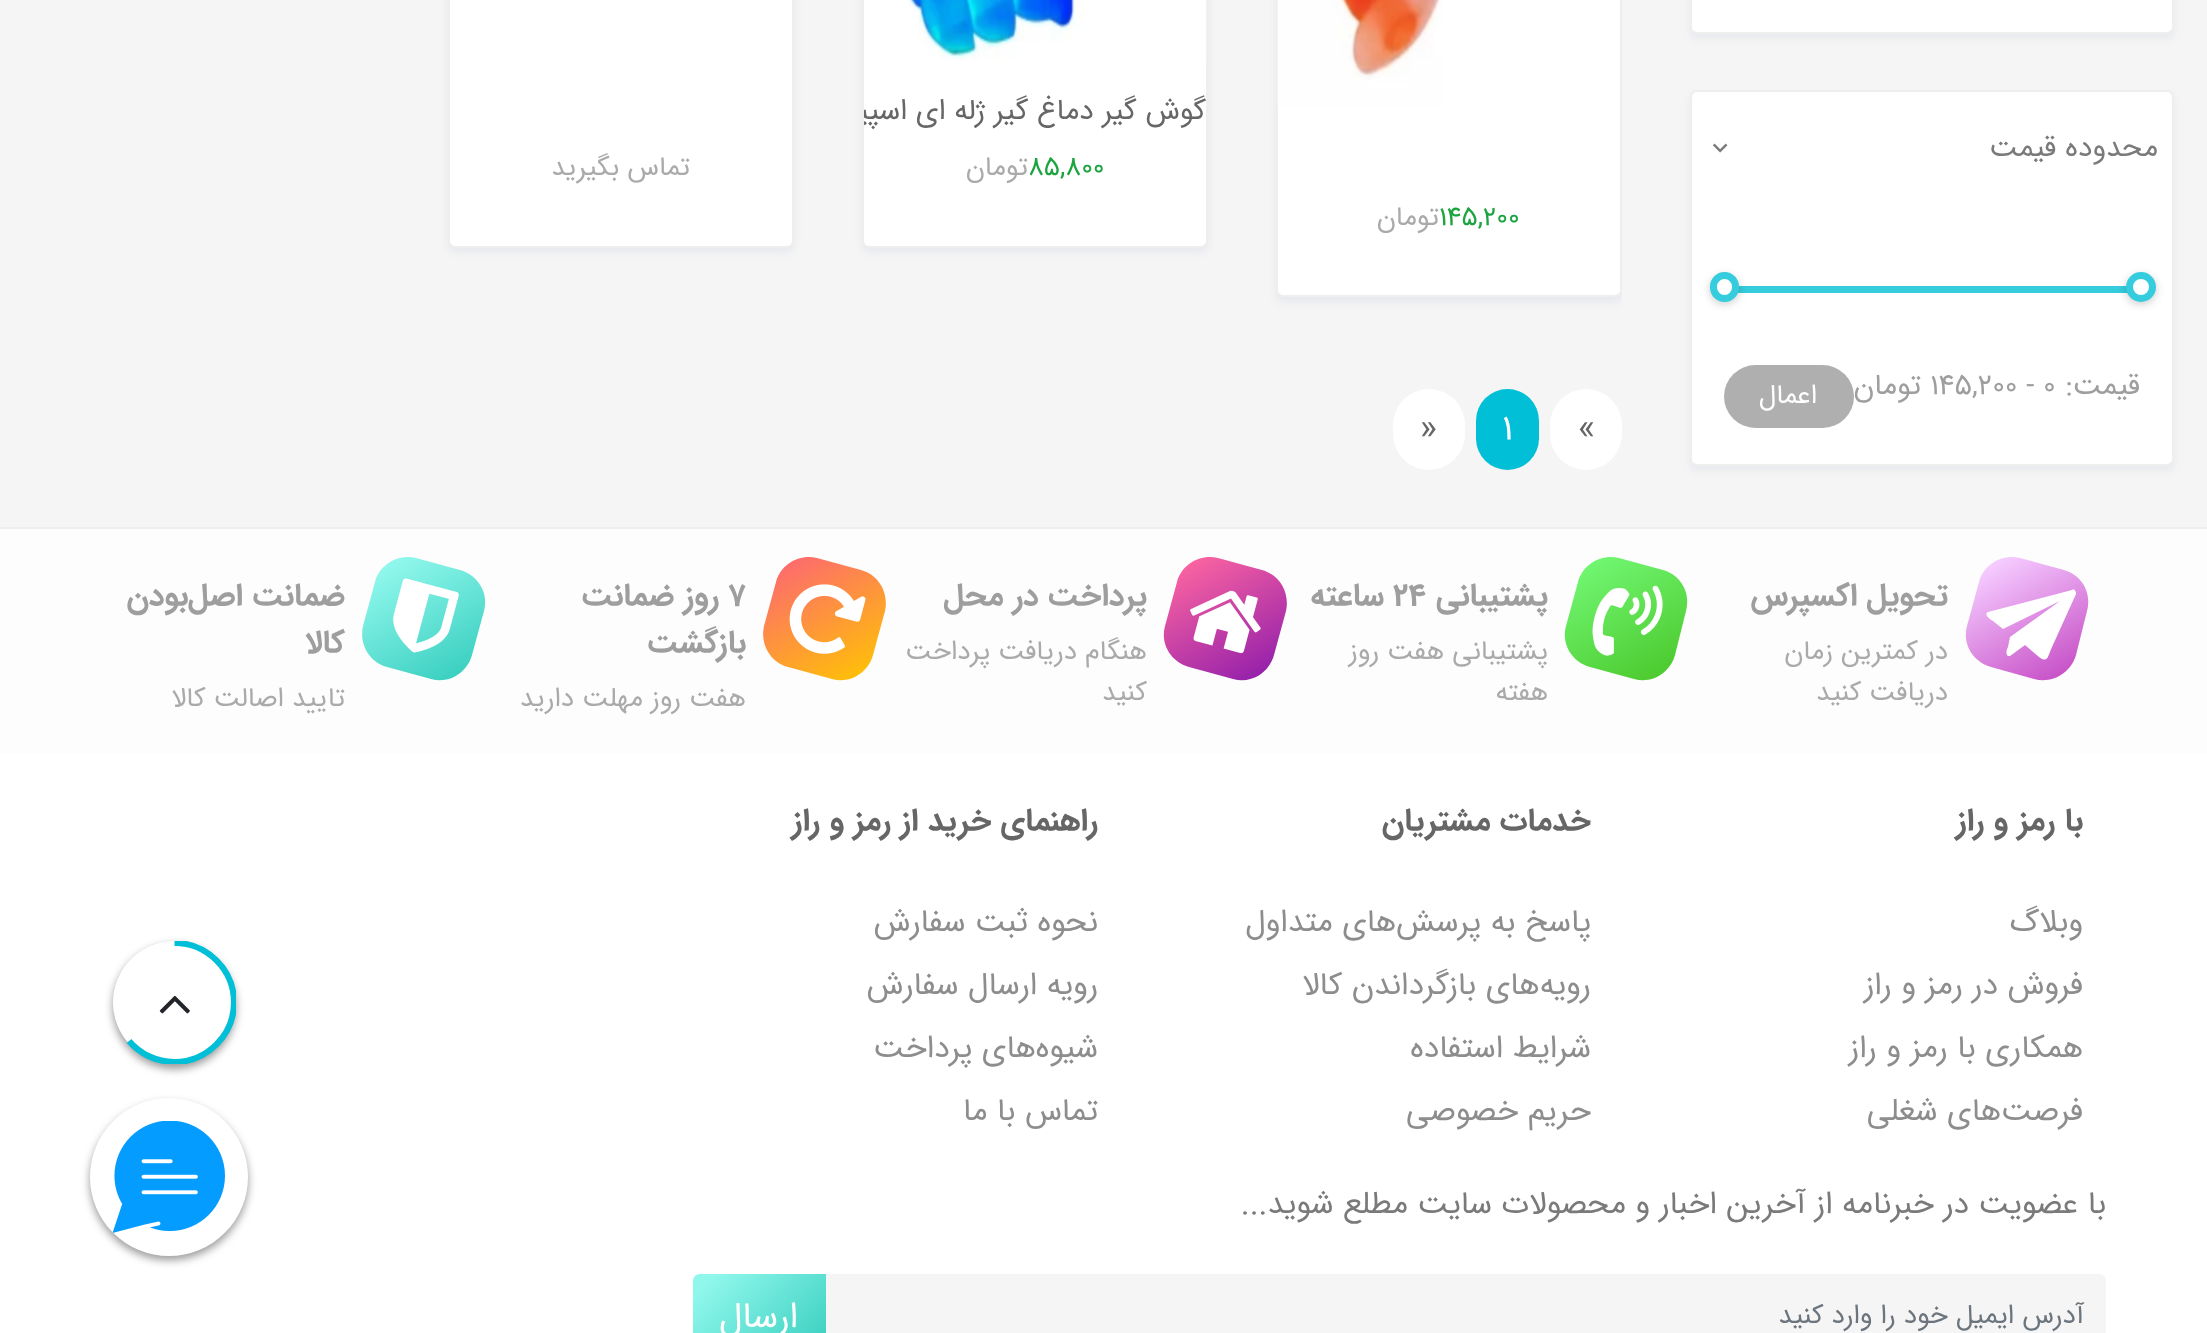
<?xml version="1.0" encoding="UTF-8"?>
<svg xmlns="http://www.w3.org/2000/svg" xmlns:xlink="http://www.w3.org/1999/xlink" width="2207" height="1333">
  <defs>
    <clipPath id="clip1"><rect x="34" y="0" width="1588" height="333" /></clipPath>
    <linearGradient id="g1" gradientUnits="userSpaceOnUse" x1="1987" y1="550" x2="2067" y2="688"><stop offset="0.1" stop-color="#f5cbff" /><stop offset="1" stop-color="#c346c2" /></linearGradient>
    <linearGradient id="g2" gradientUnits="userSpaceOnUse" x1="1587" y1="550" x2="1666" y2="688"><stop offset="0.1" stop-color="#70f570" /><stop offset="1" stop-color="#49c628" /></linearGradient>
    <linearGradient id="g3" gradientUnits="userSpaceOnUse" x1="1186" y1="550" x2="1265" y2="688"><stop offset="0.1" stop-color="#f761a1" /><stop offset="1" stop-color="#8c1bab" /></linearGradient>
    <linearGradient id="g4" gradientUnits="userSpaceOnUse" x1="785" y1="550" x2="864" y2="688"><stop offset="0.1" stop-color="#fd6e6a" /><stop offset="1" stop-color="#ffc600" /></linearGradient>
    <linearGradient id="g5" gradientUnits="userSpaceOnUse" x1="384" y1="550" x2="463" y2="688"><stop offset="0.1" stop-color="#90f7ec" /><stop offset="1" stop-color="#32ccbc" /></linearGradient>
    <linearGradient id="g6" gradientUnits="userSpaceOnUse" x1="704" y1="1263" x2="815" y2="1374"><stop offset="0.1" stop-color="#90f7ec" /><stop offset="1" stop-color="#32ccbc" /></linearGradient>
    <clipPath id="clip2"><rect x="113" y="941" width="123" height="123" /></clipPath>
    <clipPath id="clip3"><rect x="864" y="83" width="342" height="54" /></clipPath>
  </defs>
  <rect width="100%" height="100%" fill="#f5f5f5" />
  <rect x="1690" y="-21" width="484" height="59" rx="7" fill="#7e8eb1" fill-opacity="0.12" filter="blur(4.5px)" />
  <rect x="1691" y="-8" width="482" height="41" rx="6" fill="#ffffff" stroke="#eeeeee" stroke-width="2" />
  <rect x="1690" y="95" width="484" height="375" rx="7" fill="#7e8eb1" fill-opacity="0.12" filter="blur(4.5px)" />
  <rect x="1691" y="91" width="482" height="374" rx="6" fill="#ffffff" stroke="#eeeeee" stroke-width="2" />
  <image x="1712" y="143" width="16" height="10" xlink:href="image1.png" />
  <rect x="1737" y="286" width="391" height="7" fill="#35ccde" />
  <rect x="2126" y="275" width="30" height="29" rx="14.5" fill="#000000" fill-opacity="0.2" filter="blur(4.5px)" />
  <circle cx="2141" cy="287" r="11.5" fill="#ffffff" stroke="#35ccde" stroke-width="7" />
  <rect x="1710" y="275" width="29" height="29" rx="14.5" fill="#000000" fill-opacity="0.2" filter="blur(4.5px)" />
  <rect x="1713.5" y="275.5" width="22" height="23" rx="11" fill="#ffffff" stroke="#35ccde" stroke-width="7" />
  <rect x="1724" y="365" width="130" height="63" rx="31.5" fill="#afafaf" />
  <rect x="862" y="-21" width="346" height="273" rx="7" fill="#7e8eb1" fill-opacity="0.12" filter="blur(4.5px)" />
  <rect x="863" y="-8" width="344" height="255" rx="6" fill="#ffffff" stroke="#eeeeee" stroke-width="2" />
  <image x="909" y="0" width="298" height="61" xlink:href="image2.png" />
  <rect x="448" y="-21" width="346" height="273" rx="7" fill="#7e8eb1" fill-opacity="0.12" filter="blur(4.5px)" />
  <rect x="449" y="-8" width="344" height="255" rx="6" fill="#ffffff" stroke="#eeeeee" stroke-width="2" />
  <g clip-path="url(#clip1)">
    <rect x="1276" y="-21" width="346" height="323" rx="7" fill="#7e8eb1" fill-opacity="0.12" filter="blur(4.5px)" />
  </g>
  <rect x="1277" y="-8" width="344" height="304" rx="6" fill="#ffffff" stroke="#eeeeee" stroke-width="2" />
  <image x="1277" y="0" width="165" height="109" xlink:href="image3.png" />
  <rect x="1550" y="389" width="72" height="81" rx="36" fill="#ffffff" />
  <rect x="1476" y="389" width="63" height="81" rx="31.5" fill="#00bfd6" />
  <rect x="1393" y="389" width="72" height="81" rx="36" fill="#ffffff" />
  <rect y="754" width="2207" height="579" fill="#ffffff" />
  <rect y="527" width="2207" height="2" fill="#eeeeee" />
  <rect y="529" width="2207" height="225" fill="#fdfdfd" />
  <path d="M 2020 558 l 44 12 c 18 5 28 23 23 41 l -11 44 c -5 18 -24 29 -42 24 l -43 -12 c -18 -5 -29 -23 -24 -41 l 12 -44 c 5 -18 23 -28 41 -24 z" fill="url(#g1)" />
  <path d="M 2075 591 c 1 0 1 2 1 3 l -24 53 c -5 11 -4 16 -13 10 l -14 -12 l -15 11 h -2 c -3 -2 -1 -7 0 -9 l 2 -10 l 50 -36 l -57 28 l -10 -8 c -2 -1 -10 -6 -5 -9 l 84 -22 c 2 -1 3 0 3 1 z" fill="#ffffff" />
  <path d="M 1619 558 l 44 12 c 18 5 28 23 23 41 l -11 44 c -5 18 -23 29 -41 24 l -44 -12 c -18 -5 -29 -23 -24 -41 l 12 -44 c 5 -18 23 -28 41 -24 z" fill="url(#g2)" />
  <image x="1592" y="585" width="71" height="71" xlink:href="image4.png" />
  <path d="M 1218 558 l 44 12 c 18 5 28 23 24 41 l -12 44 c -5 18 -23 29 -41 24 l -44 -12 c -18 -5 -29 -23 -24 -41 l 12 -44 c 5 -18 23 -28 41 -24 z" fill="url(#g3)" />
  <image x="1190" y="590" width="71" height="64" xlink:href="image5.png" />
  <path d="M 817 558 l 44 12 c 18 5 28 23 24 41 l -12 44 c -5 18 -23 29 -41 24 l -44 -12 c -18 -5 -28 -23 -24 -41 l 12 -44 c 5 -18 23 -28 41 -24 z" fill="url(#g4)" />
  <image x="789" y="584" width="77" height="70" xlink:href="image6.png" />
  <path d="M 416 558 l 44 12 c 18 5 29 23 24 41 l -12 44 c -5 18 -23 29 -41 24 l -44 -12 c -18 -5 -28 -23 -24 -41 l 12 -44 c 5 -18 23 -28 41 -24 z" fill="url(#g5)" />
  <image x="393" y="578" width="66" height="75" xlink:href="image7.png" />
  <path d="M 826 1274 h 1273 c 4 0 7 3 7 7 v 52 c 0 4 -3 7 -7 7 h -1273 z" fill="#f5f5f5" />
  <path d="M 700 1274 h 126 v 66 h -126 c -4 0 -7 -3 -7 -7 v -52 c 0 -4 3 -7 7 -7 z" fill="url(#g6)" />
  <rect x="113" y="945" width="123" height="124" rx="61.5" fill="#000000" fill-opacity="0.4" filter="blur(4.5px)" />
  <circle cx="174.5" cy="1002.5" r="61.5" fill="#ffffff" />
  <g clip-path="url(#clip2)">
    <path d="M 174.5 943 c 32.5 0 59.5 26.5 59.5 59.5 c 0 32.5 -27 59.5 -59.5 59.5 c -18 0 -34.5 -8 -45.5 -21" fill="none" stroke="#00bfd6" stroke-width="6.1" />
  </g>
  <image x="159" y="995" width="31" height="19" xlink:href="image8.png" />
  <rect x="90" y="1103" width="158" height="157" rx="78.5" fill="#000000" fill-opacity="0.4" filter="blur(4.5px)" />
  <circle cx="169" cy="1177" r="79" fill="#ffffff" />
  <image x="113" y="1121" width="112" height="112" xlink:href="image9.png" />
  <text x="2158" y="156" style="font-family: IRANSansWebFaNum; font-size: 29.25px; direction: rtl; fill: #7a7a7a">محدوده قیمت</text>
  <text x="2140" y="394" style="font-family: IRANSansWebFaNum; font-size: 29.25px; direction: rtl; fill: #9e9e9e">قیمت:</text>
  <text x="1930" y="394" style="font-family: IRANSansWebFaNum; font-size: 29.25px; fill: #9e9e9e">145,200 - 0</text>
  <text x="1921" y="394" style="font-family: IRANSansWebFaNum; font-size: 29.25px; direction: rtl; fill: #9e9e9e">تومان</text>
  <text x="1817" y="403" style="font-family: IRANSansWebFaNum; font-size: 27px; direction: rtl; fill: #ffffff">اعمال</text>
  <g clip-path="url(#clip3)">
    <text x="1206" y="119" style="font-family: IRANSansWebFaNum; font-size: 29.25px; direction: rtl; fill: #666666">گوش گیر دماغ گیر ژله ای اسپیدو (</text>
  </g>
  <text x="1028" y="175" style="font-family: IRANSansWebFaNum; font-size: 27px; fill: #1ca440">85,800</text>
  <text x="1028" y="175" style="font-family: IRANSansWebFaNum; font-size: 27px; direction: rtl; fill: #aaaaaa">تومان</text>
  <text x="690" y="175" style="font-family: IRANSansWebFaNum; font-size: 27px; direction: rtl; fill: #aaaaaa">تماس بگیرید</text>
  <text x="1439" y="225" style="font-family: IRANSansWebFaNum; font-size: 27px; fill: #1ca440">145,200</text>
  <text x="1439" y="225" style="font-family: IRANSansWebFaNum; font-size: 27px; direction: rtl; fill: #aaaaaa">تومان</text>
  <text x="1578" y="439" style="font-family: IRANSansWebFaNum; font-size: 36px; fill: #666666">«</text>
  <text x="1502" y="439" style="font-family: IRANSansWebFaNum; font-size: 36px; fill: #ffffff">1</text>
  <text x="1420" y="439" style="font-family: IRANSansWebFaNum; font-size: 36px; fill: #666666">»</text>
  <text x="1948" y="605" style="font-family: IRANSansWebFaNum; font-size: 31.5px; font-weight: bold; direction: rtl; fill: #9e9e9e">تحویل اکسپرس</text>
  <text x="1948" y="659" style="font-family: IRANSansWebFaNum; font-size: 27px; direction: rtl; fill: #aaaaaa">در کمترین زمان</text>
  <text x="1948" y="700" style="font-family: IRANSansWebFaNum; font-size: 27px; direction: rtl; fill: #aaaaaa">دریافت کنید</text>
  <text x="1548" y="605" style="font-family: IRANSansWebFaNum; font-size: 31.5px; font-weight: bold; direction: rtl; fill: #9e9e9e">پشتیبانی</text>
  <text x="1393" y="605" style="font-family: IRANSansWebFaNum; font-size: 31.5px; font-weight: bold; fill: #9e9e9e">۲۴</text>
  <text x="1384" y="605" style="font-family: IRANSansWebFaNum; font-size: 31.5px; font-weight: bold; direction: rtl; fill: #9e9e9e">ساعته</text>
  <text x="1548" y="659" style="font-family: IRANSansWebFaNum; font-size: 27px; direction: rtl; fill: #aaaaaa">پشتیبانی هفت روز</text>
  <text x="1548" y="700" style="font-family: IRANSansWebFaNum; font-size: 27px; direction: rtl; fill: #aaaaaa">هفته</text>
  <text x="1147" y="605" style="font-family: IRANSansWebFaNum; font-size: 31.5px; font-weight: bold; direction: rtl; fill: #9e9e9e">پرداخت در محل</text>
  <text x="1147" y="659" style="font-family: IRANSansWebFaNum; font-size: 27px; direction: rtl; fill: #aaaaaa">هنگام دریافت پرداخت</text>
  <text x="1147" y="700" style="font-family: IRANSansWebFaNum; font-size: 27px; direction: rtl; fill: #aaaaaa">کنید</text>
  <text x="728" y="605" style="font-family: IRANSansWebFaNum; font-size: 31.5px; font-weight: bold; fill: #9e9e9e">۷</text>
  <text x="719" y="605" style="font-family: IRANSansWebFaNum; font-size: 31.5px; font-weight: bold; direction: rtl; fill: #9e9e9e">روز ضمانت</text>
  <text x="746" y="652" style="font-family: IRANSansWebFaNum; font-size: 31.5px; font-weight: bold; direction: rtl; fill: #9e9e9e">بازگشت</text>
  <text x="746" y="706" style="font-family: IRANSansWebFaNum; font-size: 27px; direction: rtl; fill: #aaaaaa">هفت روز مهلت دارید</text>
  <text x="345" y="605" style="font-family: IRANSansWebFaNum; font-size: 31.5px; font-weight: bold; direction: rtl; fill: #9e9e9e">ضمانت اصل‌بودن</text>
  <text x="345" y="652" style="font-family: IRANSansWebFaNum; font-size: 31.5px; font-weight: bold; direction: rtl; fill: #9e9e9e">کالا</text>
  <text x="345" y="706" style="font-family: IRANSansWebFaNum; font-size: 27px; direction: rtl; fill: #aaaaaa">تایید اصالت کالا</text>
  <text x="2083" y="830" style="font-family: IRANSansWebFaNum; font-size: 31.5px; font-weight: bold; direction: rtl; fill: #666666">با رمز و راز</text>
  <text x="2083" y="931" style="font-family: IRANSansWebFaNum; font-size: 31.5px; direction: rtl; fill: #8e8d8d">وبلاگ</text>
  <text x="2083" y="994" style="font-family: IRANSansWebFaNum; font-size: 31.5px; direction: rtl; fill: #8e8d8d">فروش در رمز و راز</text>
  <text x="2083" y="1057" style="font-family: IRANSansWebFaNum; font-size: 31.5px; direction: rtl; fill: #8e8d8d">همکاری با رمز و راز</text>
  <text x="2083" y="1120" style="font-family: IRANSansWebFaNum; font-size: 31.5px; direction: rtl; fill: #8e8d8d">فرصت‌های شغلی</text>
  <text x="1591" y="830" style="font-family: IRANSansWebFaNum; font-size: 31.5px; font-weight: bold; direction: rtl; fill: #666666">خدمات مشتریان</text>
  <text x="1591" y="931" style="font-family: IRANSansWebFaNum; font-size: 31.5px; direction: rtl; fill: #8e8d8d">پاسخ به پرسش‌های متداول</text>
  <text x="1591" y="994" style="font-family: IRANSansWebFaNum; font-size: 31.5px; direction: rtl; fill: #8e8d8d">رویه‌های بازگرداندن کالا</text>
  <text x="1591" y="1057" style="font-family: IRANSansWebFaNum; font-size: 31.5px; direction: rtl; fill: #8e8d8d">شرایط استفاده</text>
  <text x="1591" y="1120" style="font-family: IRANSansWebFaNum; font-size: 31.5px; direction: rtl; fill: #8e8d8d">حریم خصوصی</text>
  <text x="1098" y="830" style="font-family: IRANSansWebFaNum; font-size: 31.5px; font-weight: bold; direction: rtl; fill: #666666">راهنمای خرید از رمز و راز</text>
  <text x="1098" y="931" style="font-family: IRANSansWebFaNum; font-size: 31.5px; direction: rtl; fill: #8e8d8d">نحوه ثبت سفارش</text>
  <text x="1098" y="994" style="font-family: IRANSansWebFaNum; font-size: 31.5px; direction: rtl; fill: #8e8d8d">رویه ارسال سفارش</text>
  <text x="1098" y="1057" style="font-family: IRANSansWebFaNum; font-size: 31.5px; direction: rtl; fill: #8e8d8d">شیوه‌های پرداخت</text>
  <text x="1098" y="1120" style="font-family: IRANSansWebFaNum; font-size: 31.5px; direction: rtl; fill: #8e8d8d">تماس با ما</text>
  <text x="2106" y="1213" style="font-family: IRANSansWebFaNum; font-size: 31.5px; direction: rtl; fill: #7a7a7a">با عضویت در خبرنامه از آخرین اخبار و</text>
  <text x="1626" y="1213" style="font-family: IRANSansWebFaNum; font-size: 31.5px; direction: rtl; fill: #7a7a7a">محصولات سایت مطلع شوید...</text>
  <text x="2084" y="1323" style="font-family: IRANSansWebFaNum; font-size: 27px; direction: rtl; fill: #6c757d">آدرس ایمیل خود را وارد کنید</text>
  <text x="798" y="1327" style="font-family: IRANSansWebFaNum; font-size: 36px; direction: rtl; fill: #ffffff">ارسال</text>
</svg>
